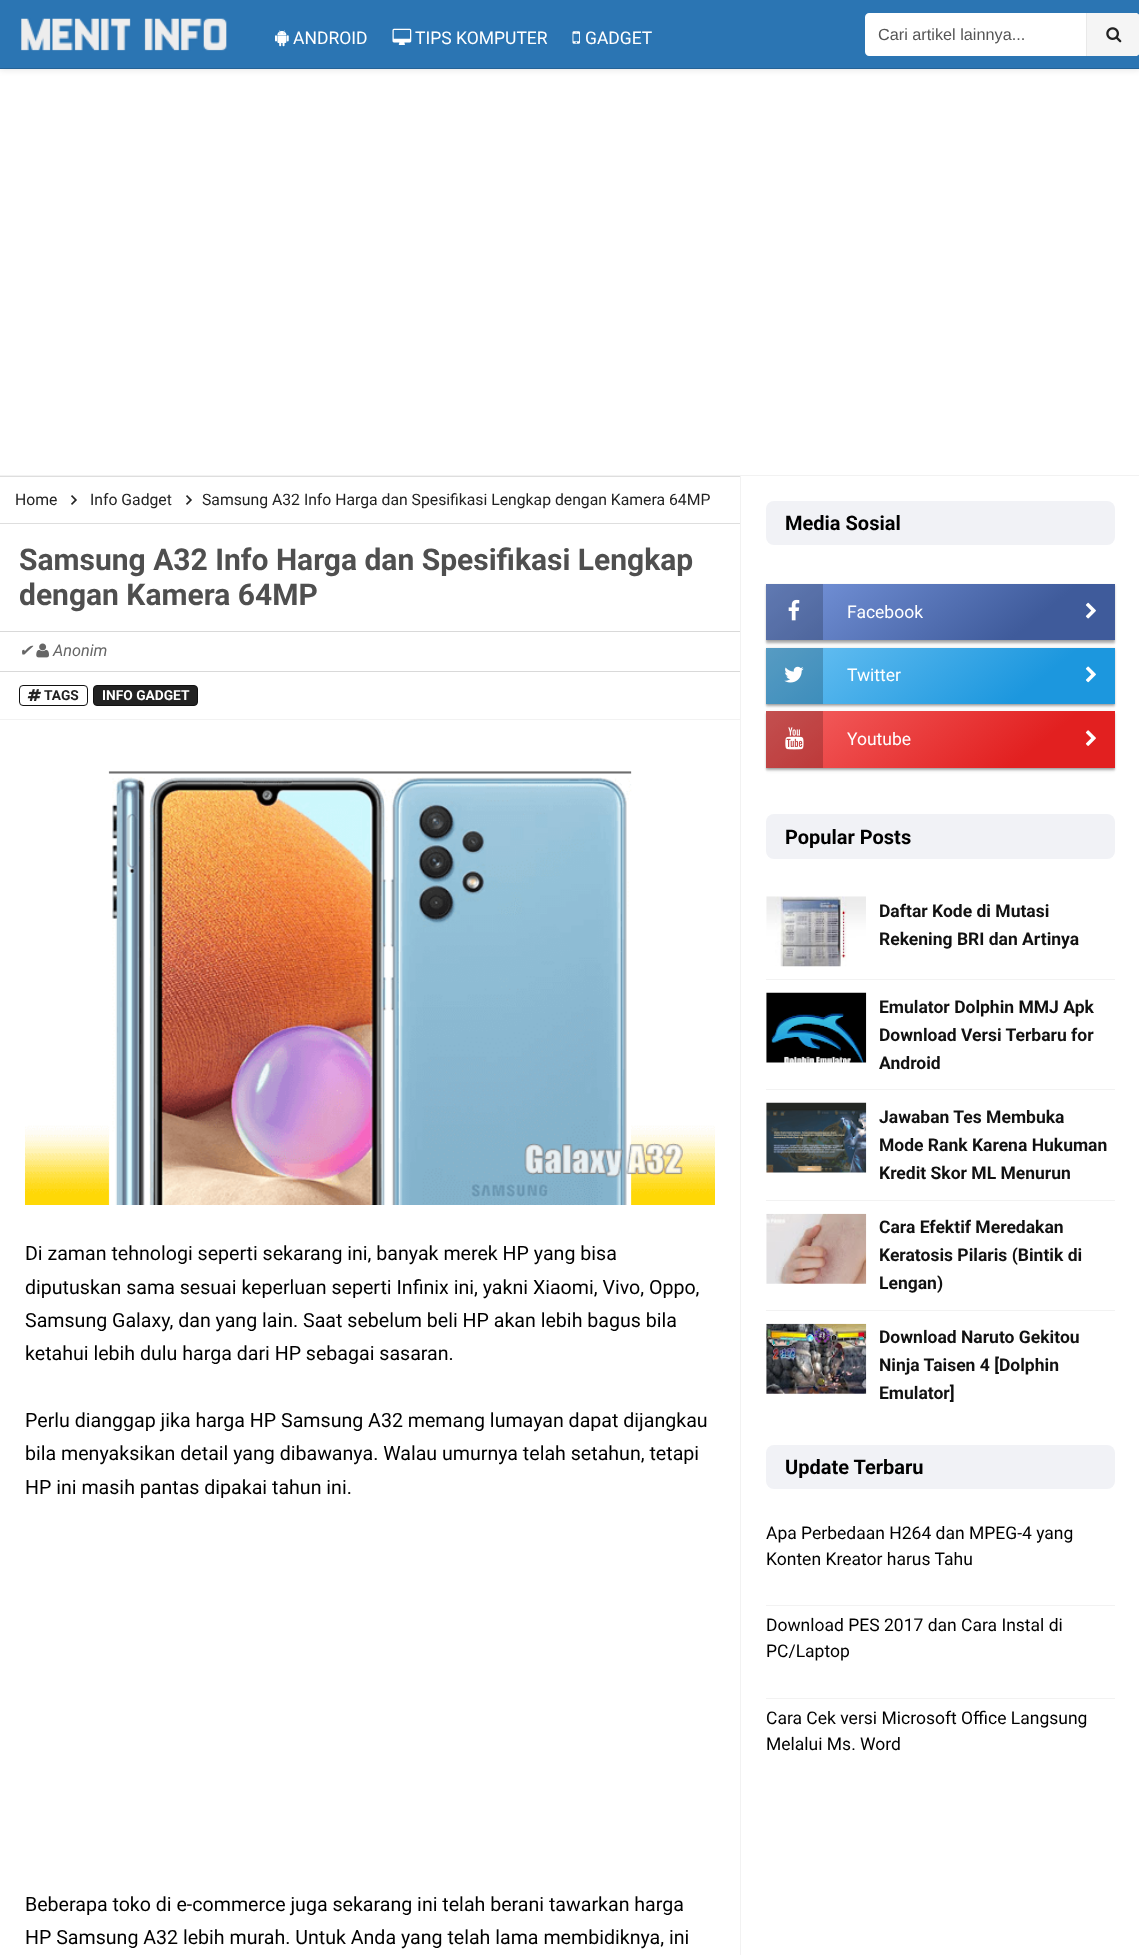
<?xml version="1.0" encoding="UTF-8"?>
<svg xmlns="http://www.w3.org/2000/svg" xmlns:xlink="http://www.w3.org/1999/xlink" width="1139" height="1955">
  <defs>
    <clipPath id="clip1"><rect x="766" y="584" width="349" height="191" /></clipPath>
    <linearGradient id="g1" gradientUnits="userSpaceOnUse" x1="858" y1="510" x2="1023" y2="714"><stop offset="0" stop-color="#7998df" /><stop offset="0.75" stop-color="#3f5b9b" /></linearGradient>
    <linearGradient id="g2" gradientUnits="userSpaceOnUse" x1="858" y1="573" x2="1023" y2="778"><stop offset="0" stop-color="#6ec3f4" /><stop offset="0.75" stop-color="#1c97de" /></linearGradient>
    <linearGradient id="g3" gradientUnits="userSpaceOnUse" x1="858" y1="637" x2="1023" y2="842"><stop offset="0" stop-color="#f46464" /><stop offset="0.75" stop-color="#e22020" /></linearGradient>
  </defs>
  <rect width="100%" height="100%" fill="#ffffff" />
  <rect y="1" width="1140" height="69" fill="#000000" fill-opacity="0.1" filter="blur(3px)" />
  <rect width="1139" height="68" fill="#2b75b3" />
  <rect y="68" width="1139" height="1" fill="#246296" />
  <image x="21" y="18" width="206" height="33" xlink:href="image1.png" />
  <image x="275" y="30" width="14" height="17" xlink:href="image2.png" />
  <image x="392" y="28" width="20" height="17" xlink:href="image3.png" />
  <image x="572" y="31" width="8" height="13" xlink:href="image4.png" />
  <path d="M 869 13 h 217 v 43 h -217 c -2 0 -4 -2 -4 -4 v -35 c 0 -2 2 -4 4 -4 z" fill="#ffffff" />
  <path d="M 1086 13 h 50 c 2 0 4 2 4 4 v 35 c 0 2 -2 4 -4 4 h -50 z" fill="#f5f5f5" />
  <rect x="1086" y="13" width="1" height="43" fill="#e9e9e9" />
  <image x="1106" y="27" width="16" height="16" xlink:href="image5.png" />
  <rect y="475" width="1139" height="1" fill="#f2f2f2" />
  <rect x="740" y="476" width="1" height="1479" fill="#f2f2f2" />
  <rect y="476" width="740" height="1" fill="#dedede" />
  <rect y="523" width="740" height="1" fill="#dedede" />
  <image x="71" y="495" width="6" height="10" xlink:href="image6.png" />
  <image x="186" y="495" width="6" height="10" xlink:href="image6.png" />
  <rect y="631" width="740" height="1" fill="#d9d9d9" />
  <rect y="671" width="740" height="1" fill="#d9d9d9" />
  <image x="36" y="643" width="13" height="15" xlink:href="image7.png" />
  <rect y="719" width="740" height="1" fill="#f2f2f2" />
  <rect x="19.5" y="685.5" width="68" height="20" rx="3.5" fill="none" stroke="#111111" />
  <image x="27" y="689" width="14" height="12" xlink:href="image8.png" />
  <rect x="93.5" y="685.5" width="104" height="20" rx="3.5" fill="#222222" stroke="#111111" />
  <image x="25" y="745" width="690" height="460" xlink:href="image9.png" />
  <rect x="766" y="501" width="349" height="44" rx="8" fill="#f1f2f6" />
  <rect x="766" y="585" width="349" height="58" fill="#000000" fill-opacity="0.24" filter="blur(1px)" />
  <g clip-path="url(#clip1)">
    <rect x="766" y="585" width="349" height="58" fill="#000000" fill-opacity="0.12" filter="blur(2px)" />
  </g>
  <rect x="766" y="640" width="349" height="1" fill="#000000" fill-opacity="0.05" />
  <rect x="766" y="584" width="349" height="56" fill="url(#g1)" />
  <rect x="766" y="584" width="57" height="56" fill="#000000" fill-opacity="0.2" />
  <image x="788" y="599" width="12" height="22" xlink:href="image10.png" />
  <image x="1085" y="602" width="11" height="17" xlink:href="image11.png" />
  <rect x="766" y="649" width="349" height="57" fill="#000000" fill-opacity="0.24" filter="blur(1px)" />
  <g clip-path="url(#clip1)">
    <rect x="766" y="649" width="349" height="57" fill="#000000" fill-opacity="0.12" filter="blur(2px)" />
  </g>
  <rect x="766" y="704" width="349" height="1" fill="#000000" fill-opacity="0.05" />
  <rect x="766" y="648" width="349" height="56" fill="url(#g2)" />
  <rect x="766" y="648" width="57" height="56" fill="#000000" fill-opacity="0.2" />
  <image x="784" y="666" width="20" height="17" xlink:href="image12.png" />
  <image x="1085" y="666" width="11" height="17" xlink:href="image13.png" />
  <rect x="766" y="713" width="349" height="57" fill="#000000" fill-opacity="0.24" filter="blur(1px)" />
  <g clip-path="url(#clip1)">
    <rect x="766" y="713" width="349" height="57" fill="#000000" fill-opacity="0.12" filter="blur(2px)" />
  </g>
  <rect x="766" y="768" width="349" height="1" fill="#000000" fill-opacity="0.05" />
  <rect x="766" y="711" width="349" height="57" fill="url(#g3)" />
  <rect x="766" y="711" width="57" height="57" fill="#000000" fill-opacity="0.2" />
  <image x="785" y="727" width="19" height="23" xlink:href="image14.png" />
  <image x="1085" y="730" width="11" height="16" xlink:href="image15.png" />
  <rect x="766" y="814" width="349" height="45" rx="8" fill="#f1f2f6" />
  <rect x="766" y="979" width="349" height="1" fill="#f2f2f2" />
  <image x="766" y="896" width="100" height="71" xlink:href="image16.png" />
  <rect x="766" y="1089" width="349" height="1" fill="#f2f2f2" />
  <image x="766" y="992" width="101" height="71" xlink:href="image17.png" />
  <rect x="766" y="1200" width="349" height="1" fill="#f2f2f2" />
  <image x="766" y="1102" width="101" height="71" xlink:href="image18.png" />
  <rect x="766" y="1310" width="349" height="1" fill="#f2f2f2" />
  <image x="766" y="1213" width="101" height="71" xlink:href="image19.png" />
  <image x="766" y="1323" width="101" height="71" xlink:href="image20.png" />
  <rect x="766" y="1445" width="349" height="44" rx="8" fill="#f1f2f6" />
  <rect x="766" y="1605" width="349" height="1" fill="#f2f2f2" />
  <rect x="766" y="1698" width="349" height="1" fill="#f2f2f2" />
  <text x="293" y="44" style="font-family: Roboto; font-size: 17.5px; fill: #ffffff">ANDROID</text>
  <text x="415" y="44" style="font-family: Roboto; font-size: 17.5px; fill: #ffffff">TIPS KOMPUTER</text>
  <text x="585" y="44" style="font-family: Roboto; font-size: 17.5px; fill: #ffffff">GADGET</text>
  <text x="878" y="40" style="font-family: Liberation Sans; font-size: 16.25px; fill: #555555">Cari artikel lainnya...</text>
  <text x="15" y="505" style="font-family: Roboto; font-size: 15.75px; fill: #222222">Home</text>
  <text x="90" y="505" style="font-family: Roboto; font-size: 15.75px; fill: #222222">Info Gadget</text>
  <text x="202" y="505" style="font-family: Roboto; font-size: 15.75px; fill: #222222">Samsung A32 Info Harga dan Spesifikasi Lengkap dengan Kamera 64MP</text>
  <text x="19" y="570" style="font-family: Roboto; font-size: 30px; font-weight: bold; fill: #4f4f4f">Samsung A32 Info Harga dan Spesifikasi Lengkap</text>
  <text x="19" y="605" style="font-family: Roboto; font-size: 30px; font-weight: bold; fill: #4f4f4f">dengan Kamera 64MP</text>
  <text x="19" y="656" style="font-family: DejaVu Sans; font-size: 16.25px; font-style: italic; fill: #666666">✔</text>
  <text x="53" y="656" style="font-family: Roboto; font-size: 16.25px; font-style: italic; fill: #666666">Anonim</text>
  <text x="44" y="700" style="font-family: Roboto; font-size: 13.75px; font-weight: bold; fill: #222222">TAGS</text>
  <text x="102" y="700" style="font-family: Roboto; font-size: 13.75px; font-weight: bold; fill: #ffffff">INFO GADGET</text>
  <text x="25" y="1260" style="font-family: Roboto; font-size: 19.6px; fill: #000000">Di zaman tehnologi seperti sekarang ini, banyak merek HP yang bisa</text>
  <text x="25" y="1294" style="font-family: Roboto; font-size: 19.6px; fill: #000000">diputuskan sama sesuai keperluan seperti Infinix ini, yakni Xiaomi, Vivo, Oppo,</text>
  <text x="25" y="1327" style="font-family: Roboto; font-size: 19.6px; fill: #000000">Samsung Galaxy, dan yang lain. Saat sebelum beli HP akan lebih bagus bila</text>
  <text x="25" y="1360" style="font-family: Roboto; font-size: 19.6px; fill: #000000">ketahui lebih dulu harga dari HP sebagai sasaran.</text>
  <text x="25" y="1427" style="font-family: Roboto; font-size: 19.6px; fill: #000000">Perlu dianggap jika harga HP Samsung A32 memang lumayan dapat dijangkau</text>
  <text x="25" y="1460" style="font-family: Roboto; font-size: 19.6px; fill: #000000">bila menyaksikan detail yang dibawanya. Walau umurnya telah setahun, tetapi</text>
  <text x="25" y="1494" style="font-family: Roboto; font-size: 19.6px; fill: #000000">HP ini masih pantas dipakai tahun ini.</text>
  <text x="25" y="1911" style="font-family: Roboto; font-size: 19.6px; fill: #000000">Beberapa toko di e-commerce juga sekarang ini telah berani tawarkan harga</text>
  <text x="25" y="1944" style="font-family: Roboto; font-size: 19.6px; fill: #000000">HP Samsung A32 lebih murah. Untuk Anda yang telah lama membidiknya, ini</text>
  <text x="785" y="530" style="font-family: Roboto; font-size: 20px; font-weight: bold; fill: #000000">Media Sosial</text>
  <text x="847" y="618" style="font-family: Roboto; font-size: 17.5px; fill: #ffffff">Facebook</text>
  <text x="847" y="681" style="font-family: Roboto; font-size: 17.5px; fill: #ffffff">Twitter</text>
  <text x="847" y="745" style="font-family: Roboto; font-size: 17.5px; fill: #ffffff">Youtube</text>
  <text x="785" y="844" style="font-family: Roboto; font-size: 20px; font-weight: bold; fill: #000000">Popular Posts</text>
  <text x="879" y="917" style="font-family: Roboto; font-size: 17.5px; font-weight: bold; fill: #111111">Daftar Kode di Mutasi</text>
  <text x="879" y="945" style="font-family: Roboto; font-size: 17.5px; font-weight: bold; fill: #111111">Rekening BRI dan Artinya</text>
  <text x="879" y="1013" style="font-family: Roboto; font-size: 17.5px; font-weight: bold; fill: #111111">Emulator Dolphin MMJ Apk</text>
  <text x="879" y="1041" style="font-family: Roboto; font-size: 17.5px; font-weight: bold; fill: #111111">Download Versi Terbaru for</text>
  <text x="879" y="1069" style="font-family: Roboto; font-size: 17.5px; font-weight: bold; fill: #111111">Android</text>
  <text x="879" y="1123" style="font-family: Roboto; font-size: 17.5px; font-weight: bold; fill: #111111">Jawaban Tes Membuka</text>
  <text x="879" y="1151" style="font-family: Roboto; font-size: 17.5px; font-weight: bold; fill: #111111">Mode Rank Karena Hukuman</text>
  <text x="879" y="1179" style="font-family: Roboto; font-size: 17.5px; font-weight: bold; fill: #111111">Kredit Skor ML Menurun</text>
  <text x="879" y="1233" style="font-family: Roboto; font-size: 17.5px; font-weight: bold; fill: #111111">Cara Efektif Meredakan</text>
  <text x="879" y="1261" style="font-family: Roboto; font-size: 17.5px; font-weight: bold; fill: #111111">Keratosis Pilaris (Bintik di</text>
  <text x="879" y="1289" style="font-family: Roboto; font-size: 17.5px; font-weight: bold; fill: #111111">Lengan)</text>
  <text x="879" y="1343" style="font-family: Roboto; font-size: 17.5px; font-weight: bold; fill: #111111">Download Naruto Gekitou</text>
  <text x="879" y="1371" style="font-family: Roboto; font-size: 17.5px; font-weight: bold; fill: #111111">Ninja Taisen 4 [Dolphin</text>
  <text x="879" y="1399" style="font-family: Roboto; font-size: 17.5px; font-weight: bold; fill: #111111">Emulator]</text>
  <text x="785" y="1474" style="font-family: Roboto; font-size: 20px; font-weight: bold; fill: #000000">Update Terbaru</text>
  <text x="766" y="1539" style="font-family: Roboto; font-size: 17.5px; fill: #000000">Apa Perbedaan H264 dan MPEG-4 yang</text>
  <text x="766" y="1565" style="font-family: Roboto; font-size: 17.5px; fill: #000000">Konten Kreator harus Tahu</text>
  <text x="766" y="1631" style="font-family: Roboto; font-size: 17.5px; fill: #000000">Download PES 2017 dan Cara Instal di</text>
  <text x="766" y="1657" style="font-family: Roboto; font-size: 17.5px; fill: #000000">PC/Laptop</text>
  <text x="766" y="1724" style="font-family: Roboto; font-size: 17.5px; fill: #000000">Cara Cek versi Microsoft Office Langsung</text>
  <text x="766" y="1750" style="font-family: Roboto; font-size: 17.5px; fill: #000000">Melalui Ms. Word</text>
</svg>
